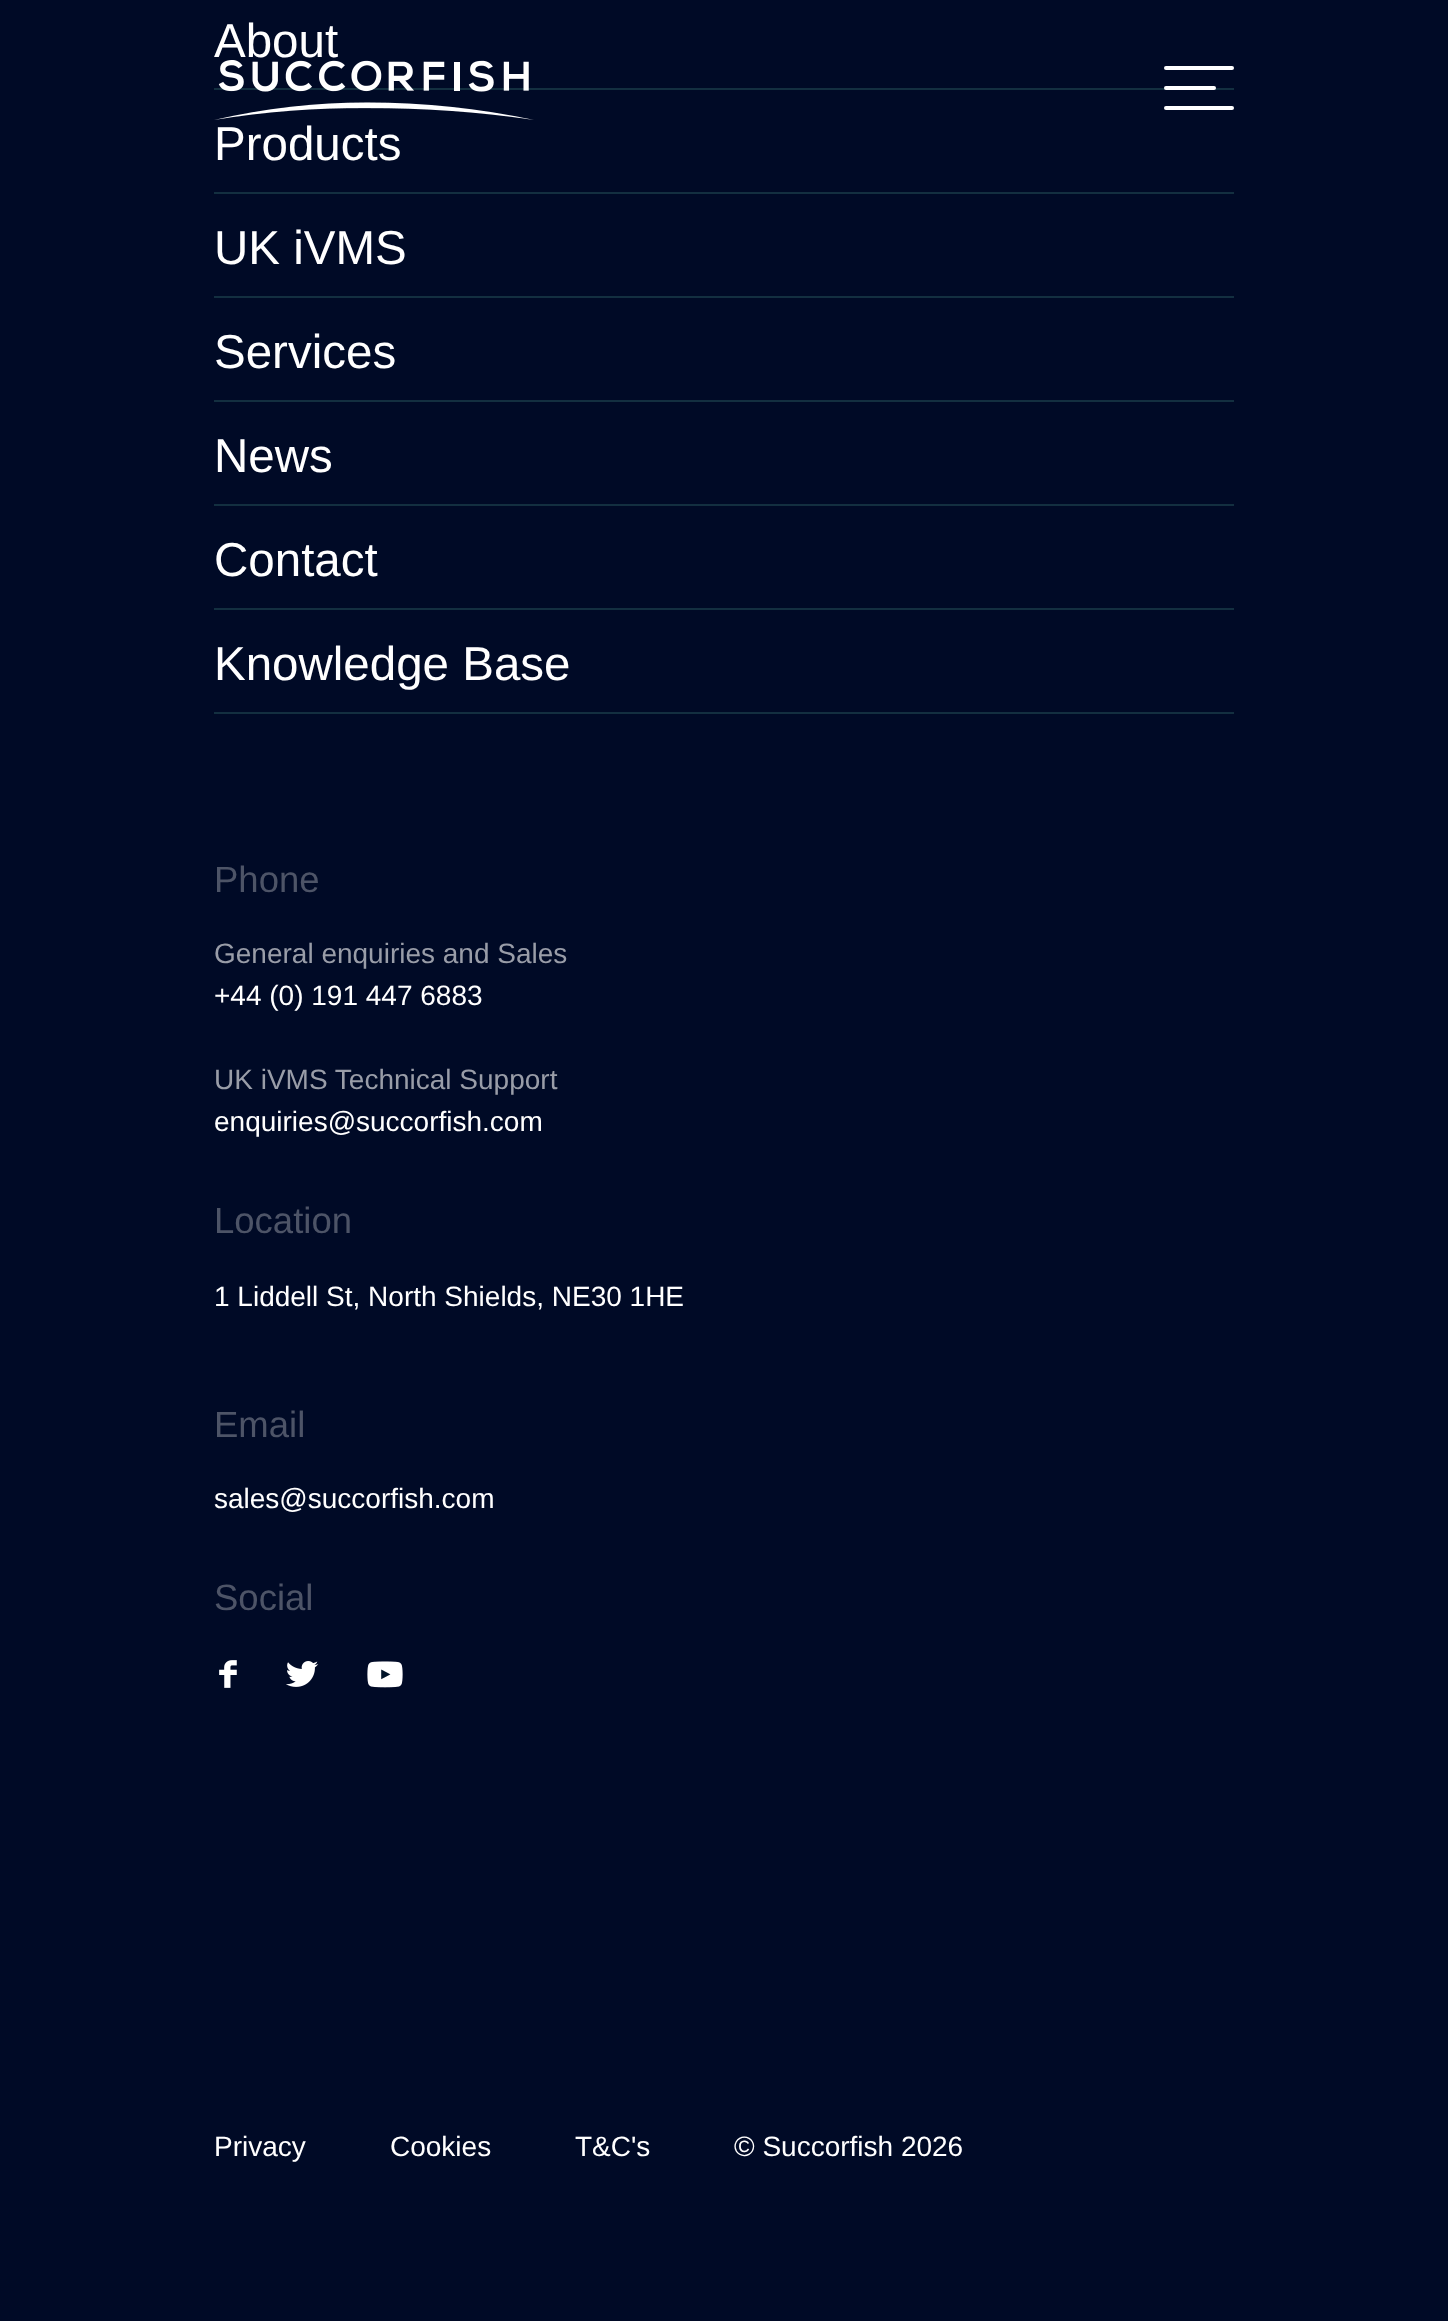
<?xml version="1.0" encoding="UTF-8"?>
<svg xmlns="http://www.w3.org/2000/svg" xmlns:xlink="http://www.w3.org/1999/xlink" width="1448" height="2321">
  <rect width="100%" height="100%" fill="#000a26" />
  <rect x="214" y="88" width="1020" height="2" fill="#132f40" />
  <rect x="214" y="192" width="1020" height="2" fill="#132f40" />
  <rect x="214" y="296" width="1020" height="2" fill="#132f40" />
  <rect x="214" y="400" width="1020" height="2" fill="#132f40" />
  <rect x="214" y="504" width="1020" height="2" fill="#132f40" />
  <rect x="214" y="608" width="1020" height="2" fill="#132f40" />
  <rect x="214" y="712" width="1020" height="2" fill="#132f40" />
  <image x="219" y="1660" width="18" height="28" xlink:href="image1.png" />
  <image x="286" y="1661" width="33" height="26" xlink:href="image2.png" />
  <image x="367" y="1661" width="36" height="27" xlink:href="image3.png" />
  <image x="214" y="60" width="320" height="60" xlink:href="image4.png" />
  <rect x="1164" y="66" width="70" height="4" rx="2" fill="#ffffff" />
  <rect x="1164" y="86" width="52" height="4" rx="2" fill="#ffffff" />
  <rect x="1164" y="106" width="70" height="4" rx="2" fill="#ffffff" />
  <text x="214" y="57" style="font-family: Liberation Sans; font-size: 47.5px; fill: #ffffff">About</text>
  <text x="214" y="160" style="font-family: Liberation Sans; font-size: 47.5px; fill: #ffffff">Products</text>
  <text x="214" y="264" style="font-family: Liberation Sans; font-size: 47.5px; fill: #ffffff">UK iVMS</text>
  <text x="214" y="368" style="font-family: Liberation Sans; font-size: 47.5px; fill: #ffffff">Services</text>
  <text x="214" y="472" style="font-family: Liberation Sans; font-size: 47.5px; fill: #ffffff">News</text>
  <text x="214" y="576" style="font-family: Liberation Sans; font-size: 47.5px; fill: #ffffff">Contact</text>
  <text x="214" y="680" style="font-family: Liberation Sans; font-size: 47.5px; fill: #ffffff">Knowledge Base</text>
  <text x="214" y="892" style="font-family: Liberation Sans; font-size: 36.5px; fill: #4d5467">Phone</text>
  <text x="214" y="963" style="font-family: Liberation Sans; font-size: 28px; fill: #999da8">General enquiries and Sales</text>
  <text x="214" y="1005" style="font-family: Liberation Sans; font-size: 28px; fill: #ffffff">+44 (0) 191 447 6883</text>
  <text x="214" y="1089" style="font-family: Liberation Sans; font-size: 28px; fill: #999da8">UK iVMS Technical Support</text>
  <text x="214" y="1131" style="font-family: Liberation Sans; font-size: 28px; fill: #ffffff">enquiries@succorfish.com</text>
  <text x="214" y="1233" style="font-family: Liberation Sans; font-size: 36.5px; fill: #4d5467">Location</text>
  <text x="214" y="1306" style="font-family: Liberation Sans; font-size: 28px; fill: #ffffff">1 Liddell St, North Shields, NE30 1HE</text>
  <text x="214" y="1437" style="font-family: Liberation Sans; font-size: 36.5px; fill: #4d5467">Email</text>
  <text x="214" y="1508" style="font-family: Liberation Sans; font-size: 28px; fill: #ffffff">sales@succorfish.com</text>
  <text x="214" y="1610" style="font-family: Liberation Sans; font-size: 36.5px; fill: #4d5467">Social</text>
  <text x="214" y="2156" style="font-family: Liberation Sans; font-size: 28px; fill: #ffffff">Privacy</text>
  <text x="390" y="2156" style="font-family: Liberation Sans; font-size: 28px; fill: #ffffff">Cookies</text>
  <text x="575" y="2156" style="font-family: Liberation Sans; font-size: 28px; fill: #ffffff">T&amp;C's</text>
  <text x="734" y="2156" style="font-family: Liberation Sans; font-size: 28px; fill: #ffffff">© Succorfish 2026</text>
</svg>
